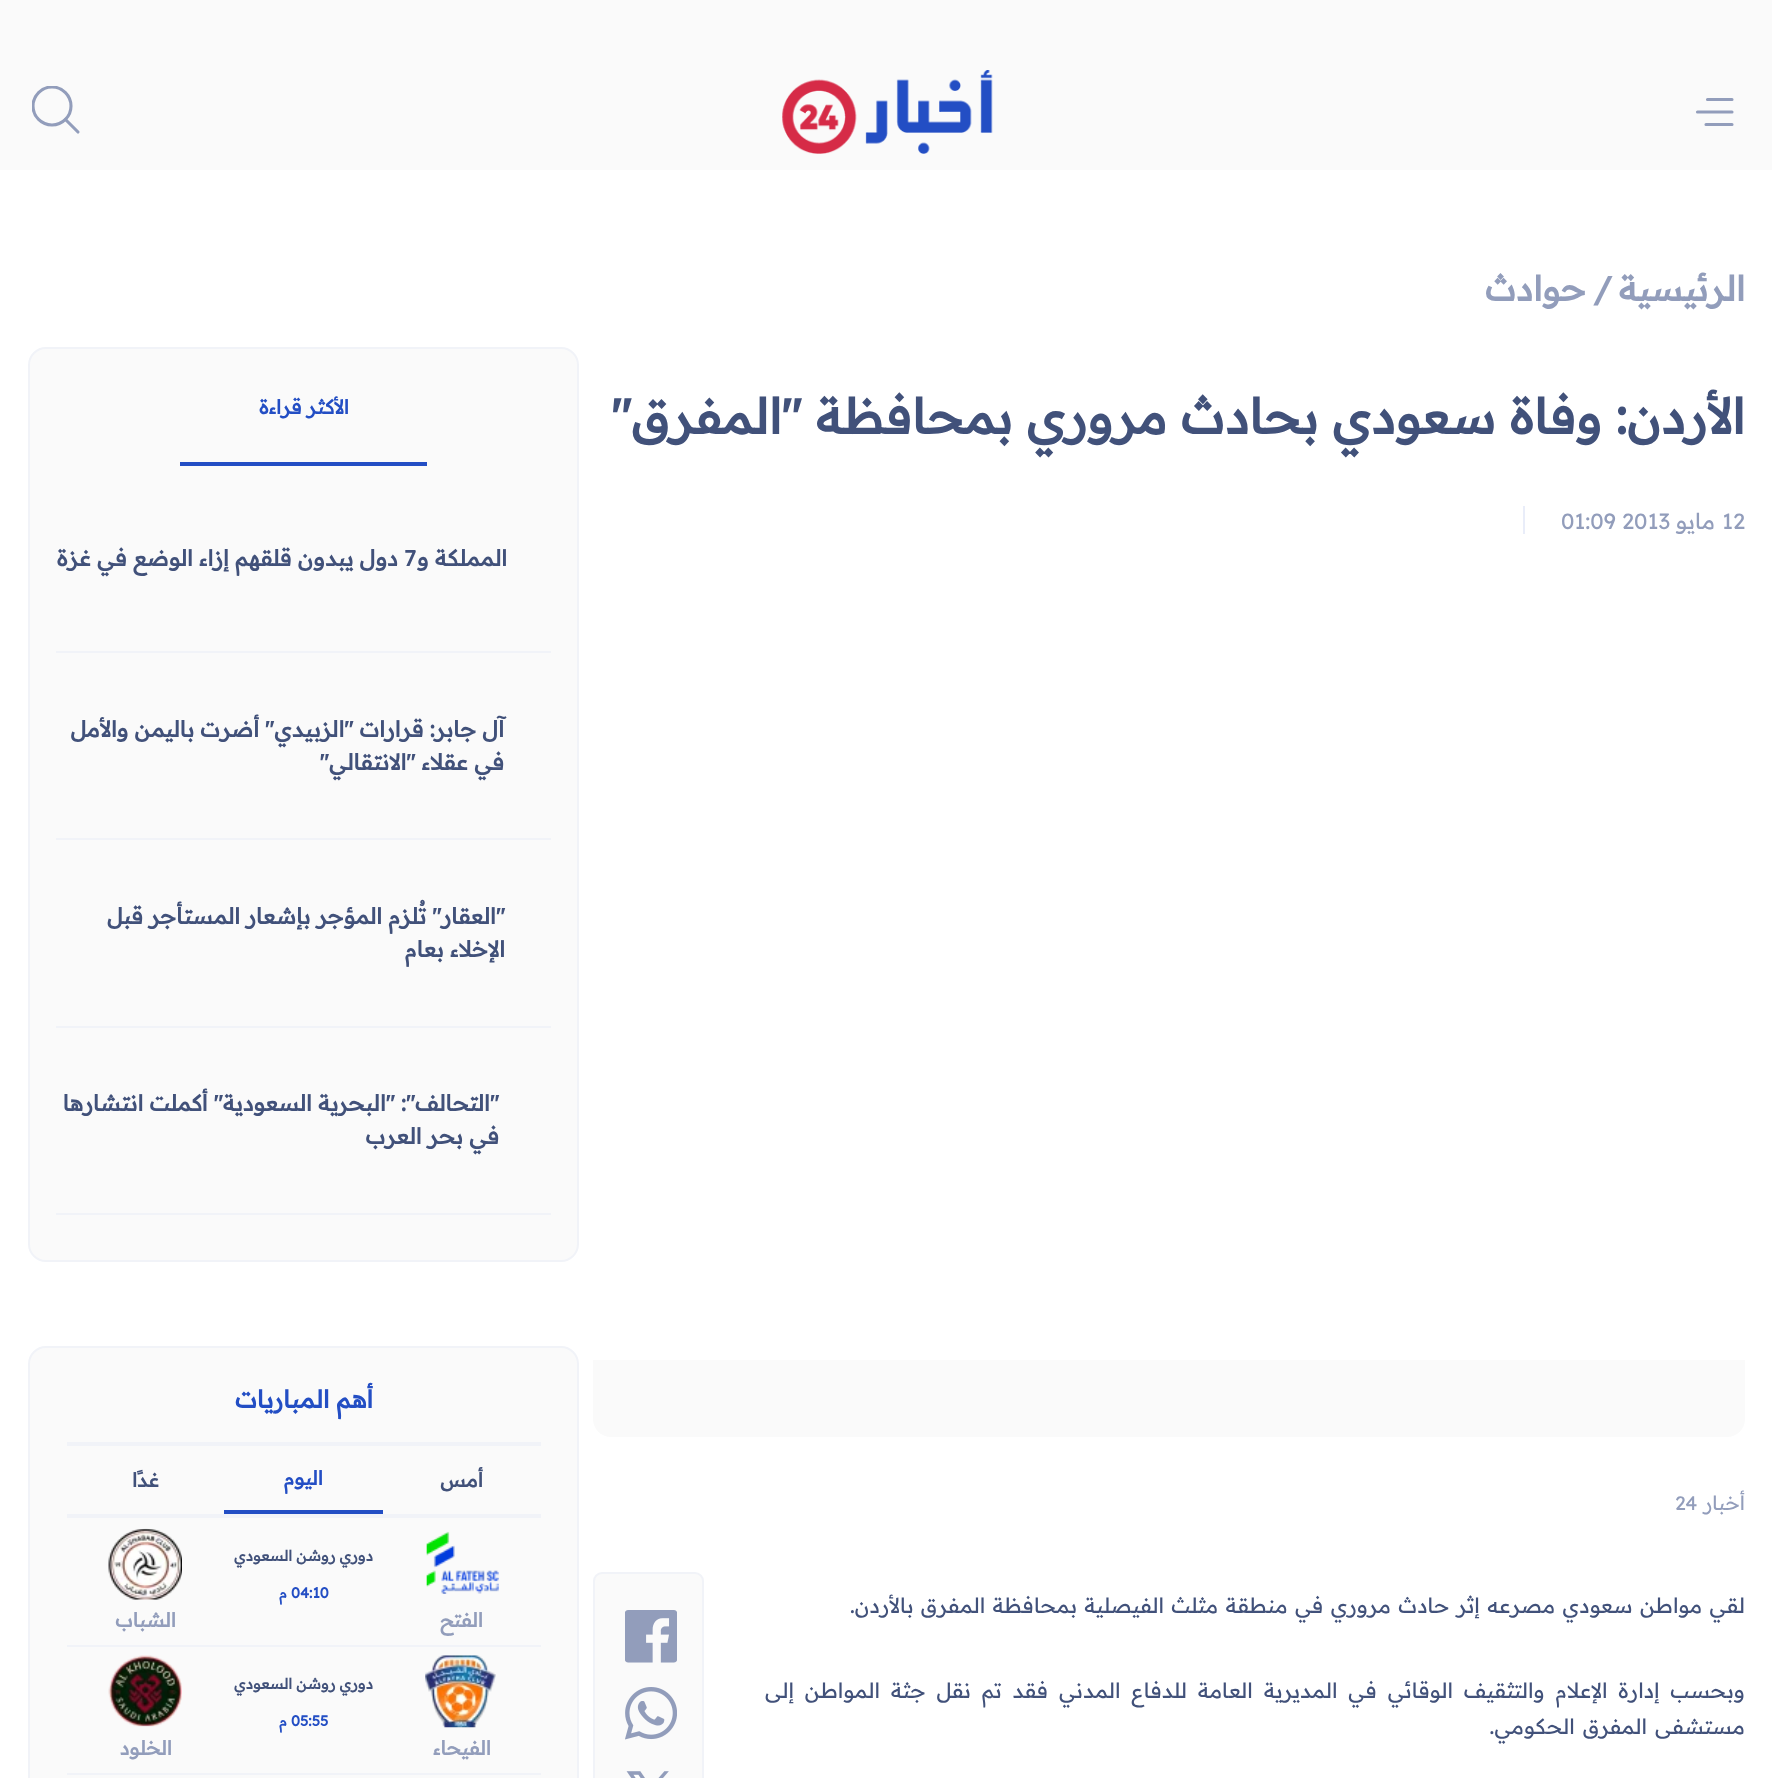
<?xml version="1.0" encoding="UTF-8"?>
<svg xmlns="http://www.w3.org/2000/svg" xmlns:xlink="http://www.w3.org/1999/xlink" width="1772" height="1778">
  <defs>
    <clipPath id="clip1"><rect x="32" y="86" width="52" height="52" /></clipPath>
  </defs>
  <rect width="100%" height="100%" fill="#ffffff" />
  <rect width="1772" height="170" fill="#fafafa" />
  <path d="M 1732 99.5 h -24.5 m 24.5 12.5 h -34.5 m 34.5 12.5 h -26" fill="none" stroke="#929dbb" stroke-width="3.1" stroke-linecap="round" stroke-linejoin="round" />
  <image x="782" y="70" width="211" height="84" xlink:href="image1.png" />
  <g clip-path="url(#clip1)">
    <circle cx="52" cy="106" r="19" fill="none" stroke="#929dbb" stroke-width="3.1" />
  </g>
  <path d="M 65.5 119.5 l 12.5 12.5" fill="none" stroke="#929dbb" stroke-width="3.1" stroke-linecap="round" />
  <rect x="1523" y="506" width="2" height="28" fill="#e9edf9" />
  <path d="M 593 1360 h 1152 v 59 c 0 10 -8 18 -18 18 h -1116 c -10 0 -18 -8 -18 -18 z" fill="#fafafa" />
  <rect x="594" y="1573" width="109" height="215" rx="8" fill="#fafafa" stroke="#f1f3f8" stroke-width="2" />
  <image x="625" y="1610" width="52" height="53" xlink:href="image2.png" />
  <image x="625" y="1687" width="52" height="53" xlink:href="image3.png" />
  <image x="626" y="1771" width="43" height="7" xlink:href="image4.png" />
  <rect x="29" y="348" width="549" height="913" rx="17" fill="#fafafa" stroke="#f1f3f8" stroke-width="2" />
  <rect x="180" y="462" width="247" height="4" fill="#234ec4" />
  <rect x="56" y="651" width="495" height="2" fill="#f1f3f8" />
  <rect x="56" y="838" width="495" height="2" fill="#f1f3f8" />
  <rect x="56" y="1026" width="495" height="2" fill="#f1f3f8" />
  <rect x="56" y="1213" width="495" height="2" fill="#f1f3f8" />
  <rect x="29" y="1347" width="549" height="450" rx="17" fill="#fafafa" stroke="#f1f3f8" stroke-width="2" />
  <rect x="67" y="1442" width="474" height="4" fill="#f1f3f8" />
  <rect x="67" y="1514" width="474" height="4" fill="#f1f3f8" />
  <rect x="224" y="1510" width="159" height="4" fill="#234ec4" />
  <rect x="67" y="1645" width="474" height="2" fill="#f1f3f8" />
  <image x="426" y="1531" width="73" height="63" xlink:href="image5.png" />
  <image x="108" y="1528" width="74" height="72" xlink:href="image6.png" />
  <rect x="67" y="1773" width="474" height="2" fill="#f1f3f8" />
  <image x="425" y="1655" width="71" height="73" xlink:href="image7.png" />
  <image x="108" y="1655" width="74" height="72" xlink:href="image8.png" />
  <text x="1745" y="301" style="font-family: Readex Pro; font-size: 34.5px; font-weight: bold; direction: rtl; fill: #929dbb">الرئيسية</text>
  <text x="1593" y="301" style="font-family: Readex Pro; font-size: 34.5px; font-weight: bold; fill: #929dbb">/</text>
  <text x="1586" y="301" style="font-family: Readex Pro; font-size: 34.5px; font-weight: bold; direction: rtl; fill: #929dbb">حوادث</text>
  <text x="1745" y="434" style="font-family: Readex Pro; font-size: 49px; font-weight: bold; direction: rtl; fill: #41517a">الأردن: وفاة سعودي بحادث مروري بمحافظة "المفرق"</text>
  <text x="1722" y="529" style="font-family: Readex Pro; font-size: 22px; fill: #929dbb">12</text>
  <text x="1715" y="529" style="font-family: Readex Pro; font-size: 22px; direction: rtl; fill: #929dbb">مايو</text>
  <text x="1561" y="529" style="font-family: Readex Pro; font-size: 22px; fill: #929dbb">01:09 2013</text>
  <text x="1745" y="1510" style="font-family: Readex Pro; font-size: 19.5px; direction: rtl; fill: #929dbb">أخبار</text>
  <text x="1675" y="1510" style="font-family: Readex Pro; font-size: 19.5px; fill: #929dbb">24</text>
  <text x="1745" y="1613" word-spacing="1.4" style="font-family: Readex Pro; font-size: 21px; letter-spacing: -0.23px; direction: rtl; fill: #41517a">لقي مواطن سعودي مصرعه إثر حادث مروري في منطقة مثلث الفيصلية بمحافظة المفرق بالأردن.</text>
  <text x="1745" y="1698" word-spacing="4.9" style="font-family: Readex Pro; font-size: 21px; letter-spacing: -0.23px; direction: rtl; fill: #41517a">وبحسب إدارة الإعلام والتثقيف الوقائي في المديرية العامة للدفاع المدني فقد تم نقل جثة المواطن إلى</text>
  <text x="1745" y="1734" word-spacing="2" style="font-family: Readex Pro; font-size: 21px; letter-spacing: -0.23px; direction: rtl; fill: #41517a">مستشفى المفرق الحكومي.</text>
  <text x="349" y="414" style="font-family: Readex Pro; font-size: 19.5px; font-weight: bold; direction: rtl; fill: #234ec4">الأكثر قراءة</text>
  <text x="507" y="566" style="font-family: Readex Pro; font-size: 22px; font-weight: bold; direction: rtl; fill: #41517a">المملكة و</text>
  <text x="404" y="566" style="font-family: Readex Pro; font-size: 22px; font-weight: bold; fill: #41517a">7</text>
  <text x="398" y="566" style="font-family: Readex Pro; font-size: 22px; font-weight: bold; direction: rtl; fill: #41517a">دول يبدون قلقهم إزاء الوضع في غزة</text>
  <text x="504" y="737" style="font-family: Readex Pro; font-size: 22px; font-weight: bold; direction: rtl; fill: #41517a">آل جابر: قرارات "الزبيدي" أضرت باليمن والأمل</text>
  <text x="504" y="770" style="font-family: Readex Pro; font-size: 22px; font-weight: bold; direction: rtl; fill: #41517a">في عقلاء "الانتقالي"</text>
  <text x="505" y="924" style="font-family: Readex Pro; font-size: 22px; font-weight: bold; direction: rtl; fill: #41517a">"العقار" تُلزم المؤجر بإشعار المستأجر قبل</text>
  <text x="505" y="957" style="font-family: Readex Pro; font-size: 22px; font-weight: bold; direction: rtl; fill: #41517a">الإخلاء بعام</text>
  <text x="499" y="1111" style="font-family: Readex Pro; font-size: 22px; font-weight: bold; direction: rtl; fill: #41517a">"التحالف": "البحرية السعودية" أكملت انتشارها</text>
  <text x="499" y="1144" style="font-family: Readex Pro; font-size: 22px; font-weight: bold; direction: rtl; fill: #41517a">في بحر العرب</text>
  <text x="373" y="1408" style="font-family: Readex Pro; font-size: 24.5px; font-weight: bold; direction: rtl; fill: #234ec4">أهم المباريات</text>
  <text x="483" y="1487" style="font-family: Readex Pro; font-size: 19.5px; font-weight: bold; direction: rtl; fill: #41517a">أمس</text>
  <text x="323" y="1485" style="font-family: Readex Pro; font-size: 19.5px; font-weight: bold; direction: rtl; fill: #234ec4">اليوم</text>
  <text x="159" y="1487" style="font-family: Readex Pro; font-size: 19.5px; font-weight: bold; direction: rtl; fill: #41517a">غدًا</text>
  <text x="373" y="1561" style="font-family: Readex Pro; font-size: 14.75px; font-weight: bold; direction: rtl; fill: #41517a">دوري روشن السعودي</text>
  <text x="291" y="1598" style="font-family: Readex Pro; font-size: 14.75px; font-weight: bold; fill: #234ec4">04:10</text>
  <text x="287" y="1598" style="font-family: Readex Pro; font-size: 14.75px; font-weight: bold; direction: rtl; fill: #234ec4">م</text>
  <text x="483" y="1627" style="font-family: Readex Pro; font-size: 19.5px; font-weight: bold; direction: rtl; fill: #929dbb">الفتح</text>
  <text x="176" y="1627" style="font-family: Readex Pro; font-size: 19.5px; font-weight: bold; direction: rtl; fill: #929dbb">الشباب</text>
  <text x="373" y="1689" style="font-family: Readex Pro; font-size: 14.75px; font-weight: bold; direction: rtl; fill: #41517a">دوري روشن السعودي</text>
  <text x="291" y="1726" style="font-family: Readex Pro; font-size: 14.75px; font-weight: bold; fill: #234ec4">05:55</text>
  <text x="287" y="1726" style="font-family: Readex Pro; font-size: 14.75px; font-weight: bold; direction: rtl; fill: #234ec4">م</text>
  <text x="491" y="1755" style="font-family: Readex Pro; font-size: 19.5px; font-weight: bold; direction: rtl; fill: #929dbb">الفيحاء</text>
  <text x="172" y="1755" style="font-family: Readex Pro; font-size: 19.5px; font-weight: bold; direction: rtl; fill: #929dbb">الخلود</text>
</svg>
